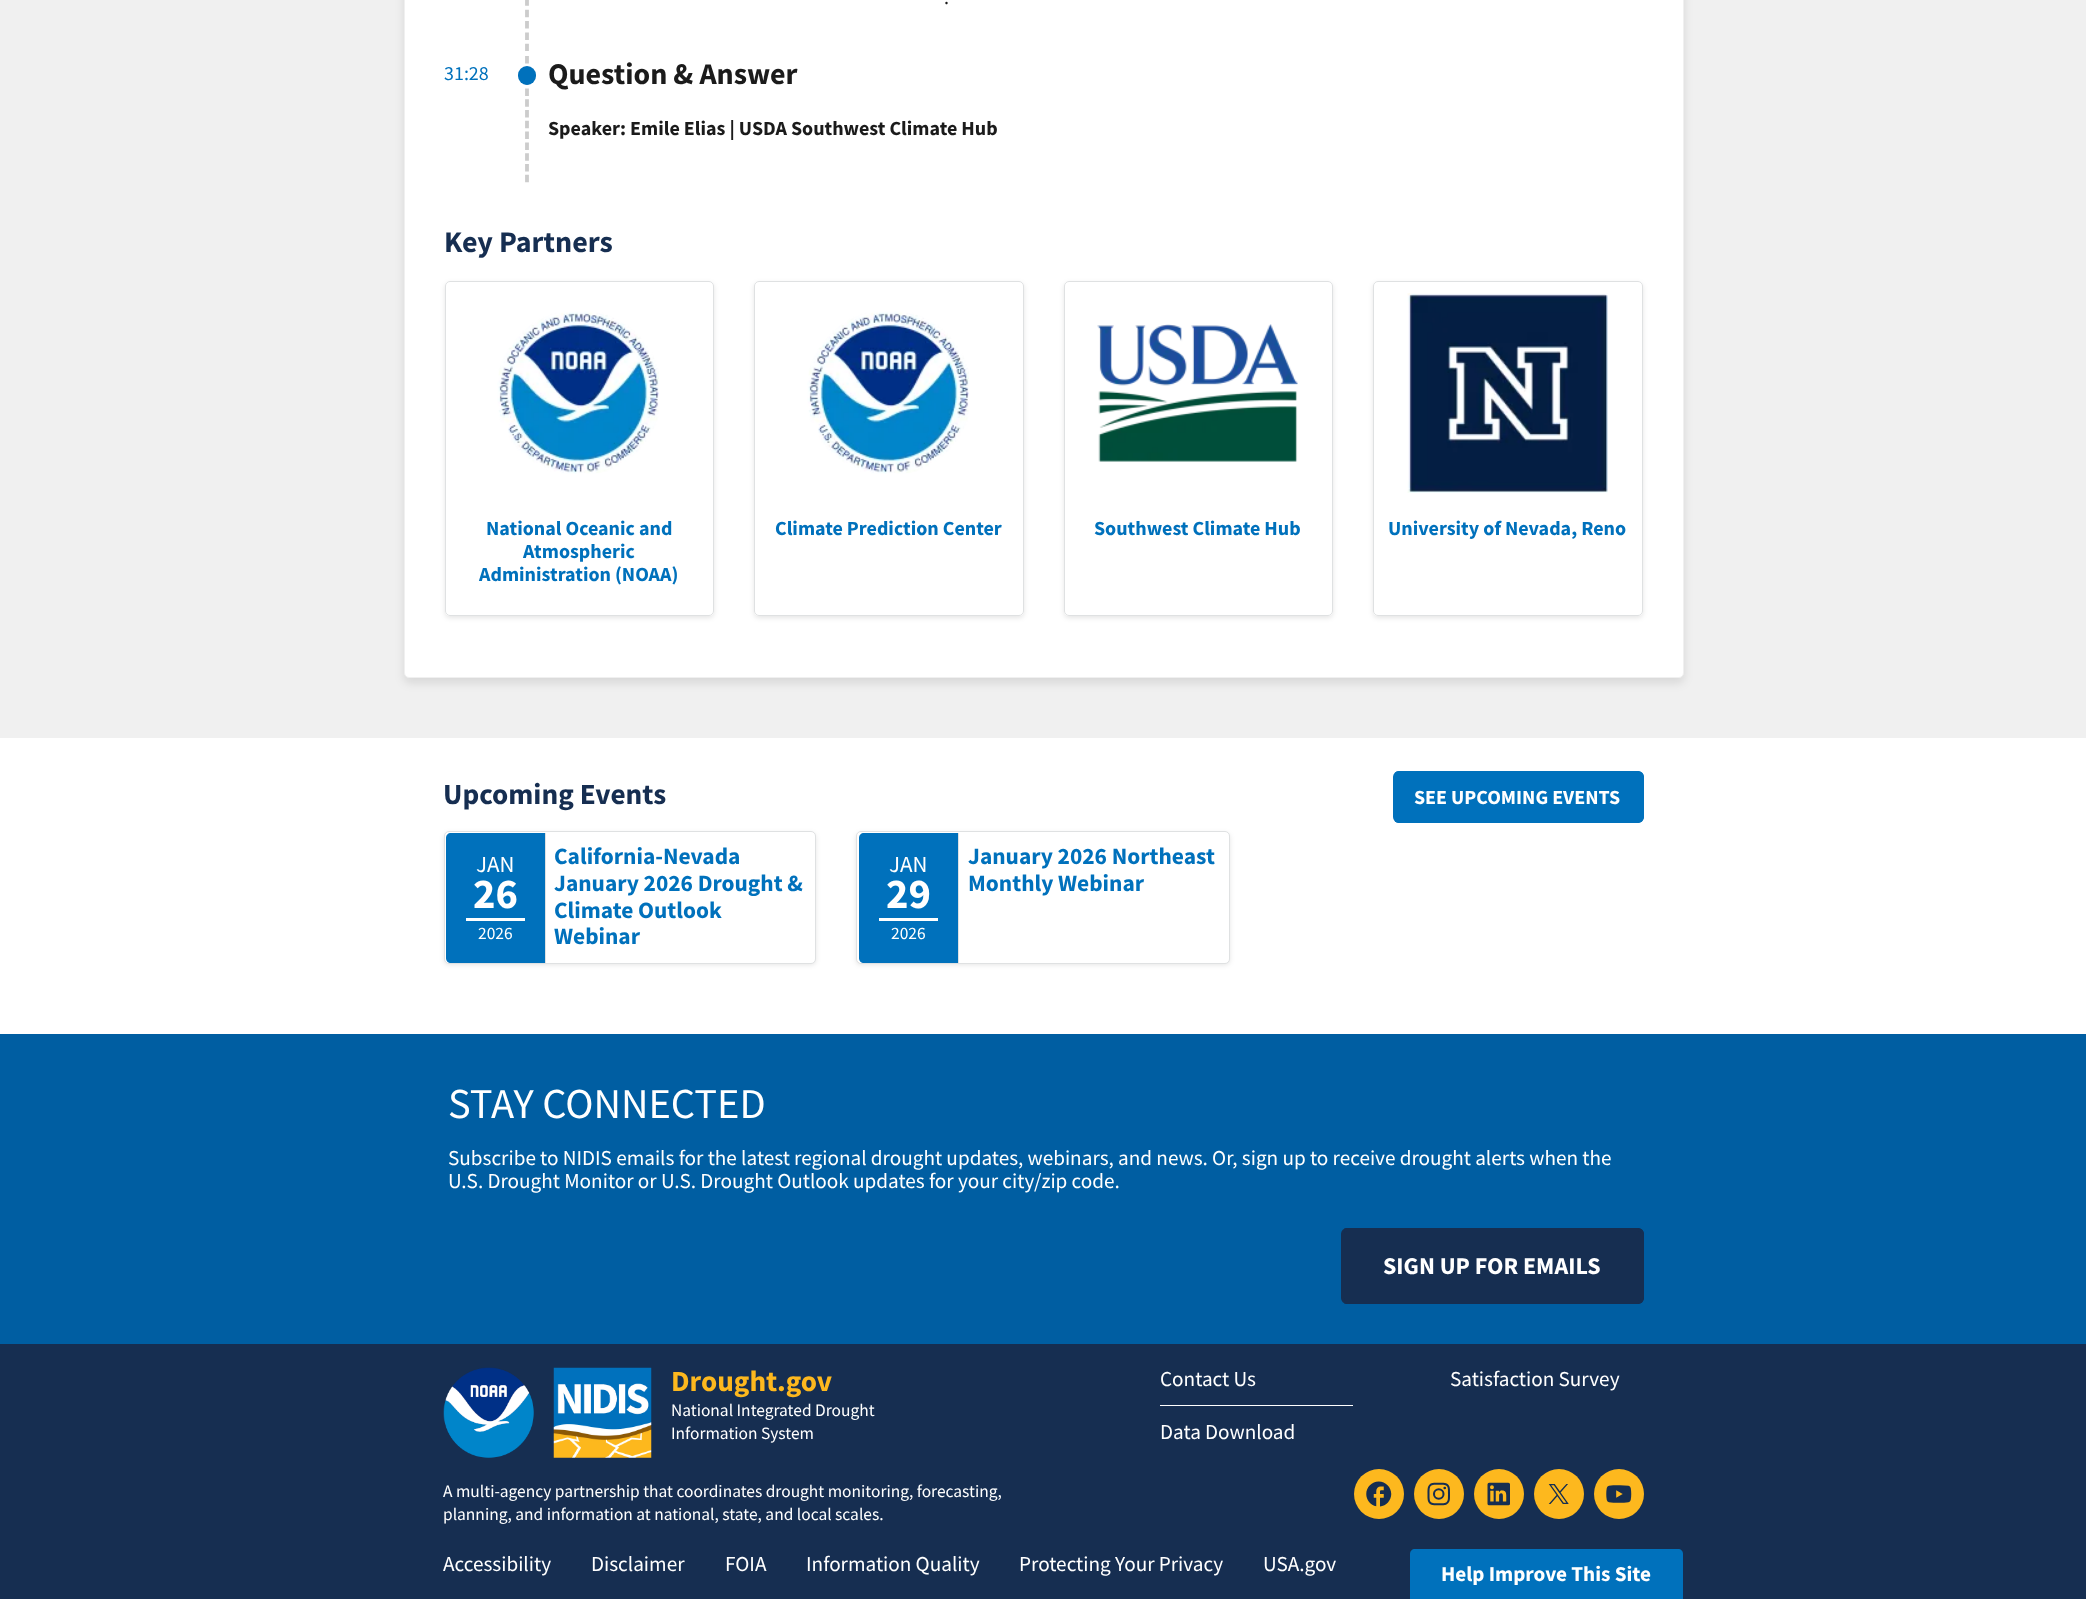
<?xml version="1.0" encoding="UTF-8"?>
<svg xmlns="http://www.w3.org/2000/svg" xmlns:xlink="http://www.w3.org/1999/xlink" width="2086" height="1599">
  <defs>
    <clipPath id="clip1"><path d="M 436 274 h 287 v 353 h -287 z m 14 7 h 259 c 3 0 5 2 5 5 v 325 c 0 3 -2 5 -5 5 h -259 c -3 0 -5 -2 -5 -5 v -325 c 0 -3 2 -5 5 -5 z" clip-rule="evenodd" /></clipPath>
    <clipPath id="clip2"><path d="M 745 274 h 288 v 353 h -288 z m 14 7 h 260 c 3 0 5 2 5 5 v 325 c 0 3 -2 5 -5 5 h -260 c -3 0 -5 -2 -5 -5 v -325 c 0 -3 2 -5 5 -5 z" clip-rule="evenodd" /></clipPath>
    <clipPath id="clip3"><path d="M 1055 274 h 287 v 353 h -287 z m 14 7 h 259 c 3 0 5 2 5 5 v 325 c 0 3 -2 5 -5 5 h -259 c -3 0 -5 -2 -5 -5 v -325 c 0 -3 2 -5 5 -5 z" clip-rule="evenodd" /></clipPath>
    <clipPath id="clip4"><path d="M 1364 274 h 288 v 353 h -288 z m 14 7 h 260 c 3 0 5 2 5 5 v 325 c 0 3 -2 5 -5 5 h -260 c -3 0 -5 -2 -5 -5 v -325 c 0 -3 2 -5 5 -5 z" clip-rule="evenodd" /></clipPath>
    <clipPath id="clip5"><rect x="1393" y="771" width="251" height="52" rx="6" /></clipPath>
    <clipPath id="clip6"><rect x="1341" y="1228" width="303" height="76" rx="6" /></clipPath>
  </defs>
  <rect width="100%" height="100%" fill="#ffffff" />
  <rect width="2086" height="738" fill="#f0f0f0" />
  <rect x="404" y="-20" width="1280" height="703" rx="5" fill="#000000" fill-opacity="0.1" filter="blur(5px)" />
  <path d="M 404.5 -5.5 h 1279 v 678.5 c 0 2.5 -2 4.5 -4.5 4.5 h -1270 c -2.5 0 -4.5 -2 -4.5 -4.5 z" fill="#ffffff" stroke="#f0f0f0" />
  <path d="M 527 -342.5 v 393.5" fill="none" stroke="#cccccc" stroke-width="3.8" stroke-dasharray="7.5 3.86" />
  <path d="M 527 56 v 126.5" fill="none" stroke="#cccccc" stroke-width="3.8" stroke-dasharray="7.5 3.3" />
  <rect x="518" y="66" width="18" height="19" rx="9" fill="#0071bc" />
  <g clip-path="url(#clip1)">
    <rect x="445" y="283" width="269" height="335" rx="5" fill="#000000" fill-opacity="0.1" filter="blur(2.5px)" />
  </g>
  <rect x="445.5" y="281.5" width="268" height="334" rx="4.5" fill="none" stroke="#dfe1e2" />
  <image x="497" y="311" width="162" height="163" xlink:href="image1.png" />
  <g clip-path="url(#clip2)">
    <rect x="754" y="283" width="270" height="335" rx="5" fill="#000000" fill-opacity="0.1" filter="blur(2.5px)" />
  </g>
  <rect x="754.5" y="281.5" width="269" height="334" rx="4.5" fill="none" stroke="#dfe1e2" />
  <image x="807" y="311" width="162" height="163" xlink:href="image2.png" />
  <g clip-path="url(#clip3)">
    <rect x="1064" y="283" width="269" height="335" rx="5" fill="#000000" fill-opacity="0.1" filter="blur(2.5px)" />
  </g>
  <rect x="1064.5" y="281.5" width="268" height="334" rx="4.5" fill="none" stroke="#dfe1e2" />
  <image x="1097" y="324" width="201" height="138" xlink:href="image3.png" />
  <g clip-path="url(#clip4)">
    <rect x="1373" y="283" width="270" height="335" rx="5" fill="#000000" fill-opacity="0.1" filter="blur(2.5px)" />
  </g>
  <rect x="1373.5" y="281.5" width="269" height="334" rx="4.5" fill="none" stroke="#dfe1e2" />
  <image x="1407" y="293" width="201" height="200" xlink:href="image4.png" />
  <g clip-path="url(#clip5)">
    <path d="M 1395 771 h 243 c 3.5 0 6 2.5 6 6 v 40 c 0 3.5 -2.5 6 -6 6 h -243 z" fill="#0071bc" />
  </g>
  <rect x="1394.5" y="772.5" width="248" height="49" rx="4.5" fill="none" stroke="#0071bc" stroke-width="3" />
  <rect x="444" y="833" width="372" height="132" rx="5" fill="#000000" fill-opacity="0.1" filter="blur(2.5px)" />
  <rect x="444.5" y="831.5" width="371" height="132" rx="4.5" fill="#ffffff" stroke="#dfe1e2" />
  <path d="M 451 833 h 95 v 130 h -95 c -3 0 -5 -2 -5 -5 v -120 c 0 -3 2 -5 5 -5 z" fill="#0071bc" />
  <rect x="545" y="833" width="1" height="130" fill="#dfe1e2" />
  <rect x="466" y="918" width="59" height="3" fill="#ffffff" />
  <rect x="856" y="833" width="374" height="132" rx="5" fill="#000000" fill-opacity="0.1" filter="blur(2.5px)" />
  <rect x="856.5" y="831.5" width="373" height="132" rx="4.5" fill="#ffffff" stroke="#dfe1e2" />
  <path d="M 864 833 h 95 v 130 h -95 c -3 0 -5 -2 -5 -5 v -120 c 0 -3 2 -5 5 -5 z" fill="#0071bc" />
  <rect x="958" y="833" width="1" height="130" fill="#dfe1e2" />
  <rect x="879" y="918" width="59" height="3" fill="#ffffff" />
  <rect y="1034" width="2086" height="310" fill="#005ea2" />
  <g clip-path="url(#clip6)">
    <path d="M 1344 1228 h 294 c 3.5 0 6 2.5 6 6 v 64 c 0 3.5 -2.5 6 -6 6 h -294 z" fill="#162e51" />
  </g>
  <rect x="1342.5" y="1229.5" width="300" height="73" rx="4.5" fill="none" stroke="#162e51" stroke-width="3" />
  <rect y="1344" width="2086" height="255" fill="#162e51" />
  <image x="443" y="1367" width="91" height="91" xlink:href="image5.png" />
  <image x="553" y="1367" width="99" height="91" xlink:href="image6.png" />
  <rect x="1160" y="1405" width="193" height="1" fill="#ffffff" />
  <circle cx="1379" cy="1494" r="25" fill="#fdb81e" />
  <image x="1366" y="1481" width="26" height="26" xlink:href="image7.png" />
  <circle cx="1439" cy="1494" r="25" fill="#fdb81e" />
  <image x="1427" y="1482" width="23" height="24" xlink:href="image8.png" />
  <circle cx="1499" cy="1494" r="25" fill="#fdb81e" />
  <image x="1487" y="1482" width="23" height="24" xlink:href="image9.png" />
  <circle cx="1559" cy="1494" r="25" fill="#fdb81e" />
  <image x="1548" y="1484" width="21" height="20" xlink:href="image10.png" />
  <circle cx="1619" cy="1494" r="25" fill="#fdb81e" />
  <image x="1606" y="1485" width="26" height="18" xlink:href="image11.png" />
  <path d="M 1415 1549 h 263 c 3 0 5 2 5 5 v 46 h -273 v -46 c 0 -3 2 -5 5 -5 z" fill="#0071bc" />
  <text x="944" y="4" style="font-family: Source Sans Pro; font-size: 20px; fill: #1b1b1b">.</text>
  <text x="444" y="80" style="font-family: Source Sans Pro; font-size: 20px; fill: #0071bc">31:28</text>
  <text x="548" y="84" style="font-family: Source Sans Pro; font-size: 30px; font-weight: bold; fill: #1b1b1b">Question &amp; Answer</text>
  <text x="548" y="135" style="font-family: Source Sans Pro; font-size: 20px; font-weight: bold; fill: #1b1b1b">Speaker: Emile Elias | USDA Southwest Climate Hub</text>
  <text x="444" y="252" style="font-family: Source Sans Pro; font-size: 30px; font-weight: bold; fill: #162e51">Key Partners</text>
  <text x="486" y="535" style="font-family: Source Sans Pro; font-size: 20px; font-weight: bold; fill: #0071bc">National Oceanic and</text>
  <text x="523" y="558" style="font-family: Source Sans Pro; font-size: 20px; font-weight: bold; fill: #0071bc">Atmospheric</text>
  <text x="479" y="581" style="font-family: Source Sans Pro; font-size: 20px; font-weight: bold; fill: #0071bc">Administration (NOAA)</text>
  <text x="775" y="535" style="font-family: Source Sans Pro; font-size: 20px; font-weight: bold; fill: #0071bc">Climate Prediction Center</text>
  <text x="1094" y="535" style="font-family: Source Sans Pro; font-size: 20px; font-weight: bold; fill: #0071bc">Southwest Climate Hub</text>
  <text x="1388" y="535" style="font-family: Source Sans Pro; font-size: 20px; font-weight: bold; fill: #0071bc">University of Nevada, Reno</text>
  <text x="443" y="804" style="font-family: Source Sans Pro; font-size: 29.25px; font-weight: bold; fill: #162e51">Upcoming Events</text>
  <text x="1414" y="804" style="font-family: Source Sans Pro; font-size: 20px; font-weight: bold; fill: #ffffff">SEE UPCOMING EVENTS</text>
  <text x="476" y="872" style="font-family: Source Sans Pro; font-size: 23px; fill: #ffffff">JAN</text>
  <text x="473" y="908" style="font-family: Source Sans Pro; font-size: 42.5px; font-weight: bold; fill: #ffffff">26</text>
  <text x="478" y="939" style="font-family: Source Sans Pro; font-size: 17.4px; fill: #ffffff">2026</text>
  <text x="554" y="864" style="font-family: Source Sans Pro; font-size: 23.4px; font-weight: bold; fill: #0071bc">California-Nevada</text>
  <text x="554" y="891" style="font-family: Source Sans Pro; font-size: 23.4px; font-weight: bold; fill: #0071bc">January 2026 Drought &amp;</text>
  <text x="554" y="918" style="font-family: Source Sans Pro; font-size: 23.4px; font-weight: bold; fill: #0071bc">Climate Outlook</text>
  <text x="554" y="944" style="font-family: Source Sans Pro; font-size: 23.4px; font-weight: bold; fill: #0071bc">Webinar</text>
  <text x="889" y="872" style="font-family: Source Sans Pro; font-size: 23px; fill: #ffffff">JAN</text>
  <text x="886" y="908" style="font-family: Source Sans Pro; font-size: 42.5px; font-weight: bold; fill: #ffffff">29</text>
  <text x="891" y="939" style="font-family: Source Sans Pro; font-size: 17.4px; fill: #ffffff">2026</text>
  <text x="968" y="864" style="font-family: Source Sans Pro; font-size: 23.4px; font-weight: bold; fill: #0071bc">January 2026 Northeast</text>
  <text x="968" y="891" style="font-family: Source Sans Pro; font-size: 23.4px; font-weight: bold; fill: #0071bc">Monthly Webinar</text>
  <text x="448" y="1118" style="font-family: Source Sans Pro; font-size: 42.5px; fill: #ffffff">STAY CONNECTED</text>
  <text x="448" y="1165" style="font-family: Source Sans Pro; font-size: 21.2px; fill: #ffffff">Subscribe to NIDIS emails for the latest regional drought updates, webinars, and news. Or, sign up to receive drought alerts when the</text>
  <text x="448" y="1188" style="font-family: Source Sans Pro; font-size: 21.2px; fill: #ffffff">U.S. Drought Monitor or U.S. Drought Outlook updates for your city/zip code.</text>
  <text x="1383" y="1274" style="font-family: Source Sans Pro; font-size: 24px; font-weight: bold; fill: #ffffff">SIGN UP FOR EMAILS</text>
  <text x="671" y="1391" style="font-family: Source Sans Pro; font-size: 29.25px; font-weight: bold; fill: #fdb81e">Drought.gov</text>
  <text x="671" y="1416" style="font-family: Source Sans Pro; font-size: 17.4px; fill: #ffffff">National Integrated Drought</text>
  <text x="671" y="1439" style="font-family: Source Sans Pro; font-size: 17.4px; fill: #ffffff">Information System</text>
  <text x="443" y="1497" style="font-family: Source Sans Pro; font-size: 17.4px; fill: #ffffff">A multi-agency partnership that coordinates drought monitoring, forecasting,</text>
  <text x="443" y="1520" style="font-family: Source Sans Pro; font-size: 17.4px; fill: #ffffff">planning, and information at national, state, and local scales.</text>
  <text x="1160" y="1386" style="font-family: Source Sans Pro; font-size: 21.2px; fill: #ffffff">Contact Us</text>
  <text x="1450" y="1386" style="font-family: Source Sans Pro; font-size: 21.2px; fill: #ffffff">Satisfaction Survey</text>
  <text x="1160" y="1439" style="font-family: Source Sans Pro; font-size: 21.2px; fill: #ffffff">Data Download</text>
  <text x="1441" y="1581" style="font-family: Source Sans Pro; font-size: 21.2px; font-weight: bold; fill: #ffffff">Help Improve This Site</text>
  <text x="443" y="1571" style="font-family: Source Sans Pro; font-size: 21.2px; fill: #ffffff">Accessibility</text>
  <text x="591" y="1571" style="font-family: Source Sans Pro; font-size: 21.2px; fill: #ffffff">Disclaimer</text>
  <text x="725" y="1571" style="font-family: Source Sans Pro; font-size: 21.2px; fill: #ffffff">FOIA</text>
  <text x="806" y="1571" style="font-family: Source Sans Pro; font-size: 21.2px; fill: #ffffff">Information Quality</text>
  <text x="1019" y="1571" style="font-family: Source Sans Pro; font-size: 21.2px; fill: #ffffff">Protecting Your Privacy</text>
  <text x="1263" y="1571" style="font-family: Source Sans Pro; font-size: 21.2px; fill: #ffffff">USA.gov</text>
</svg>
